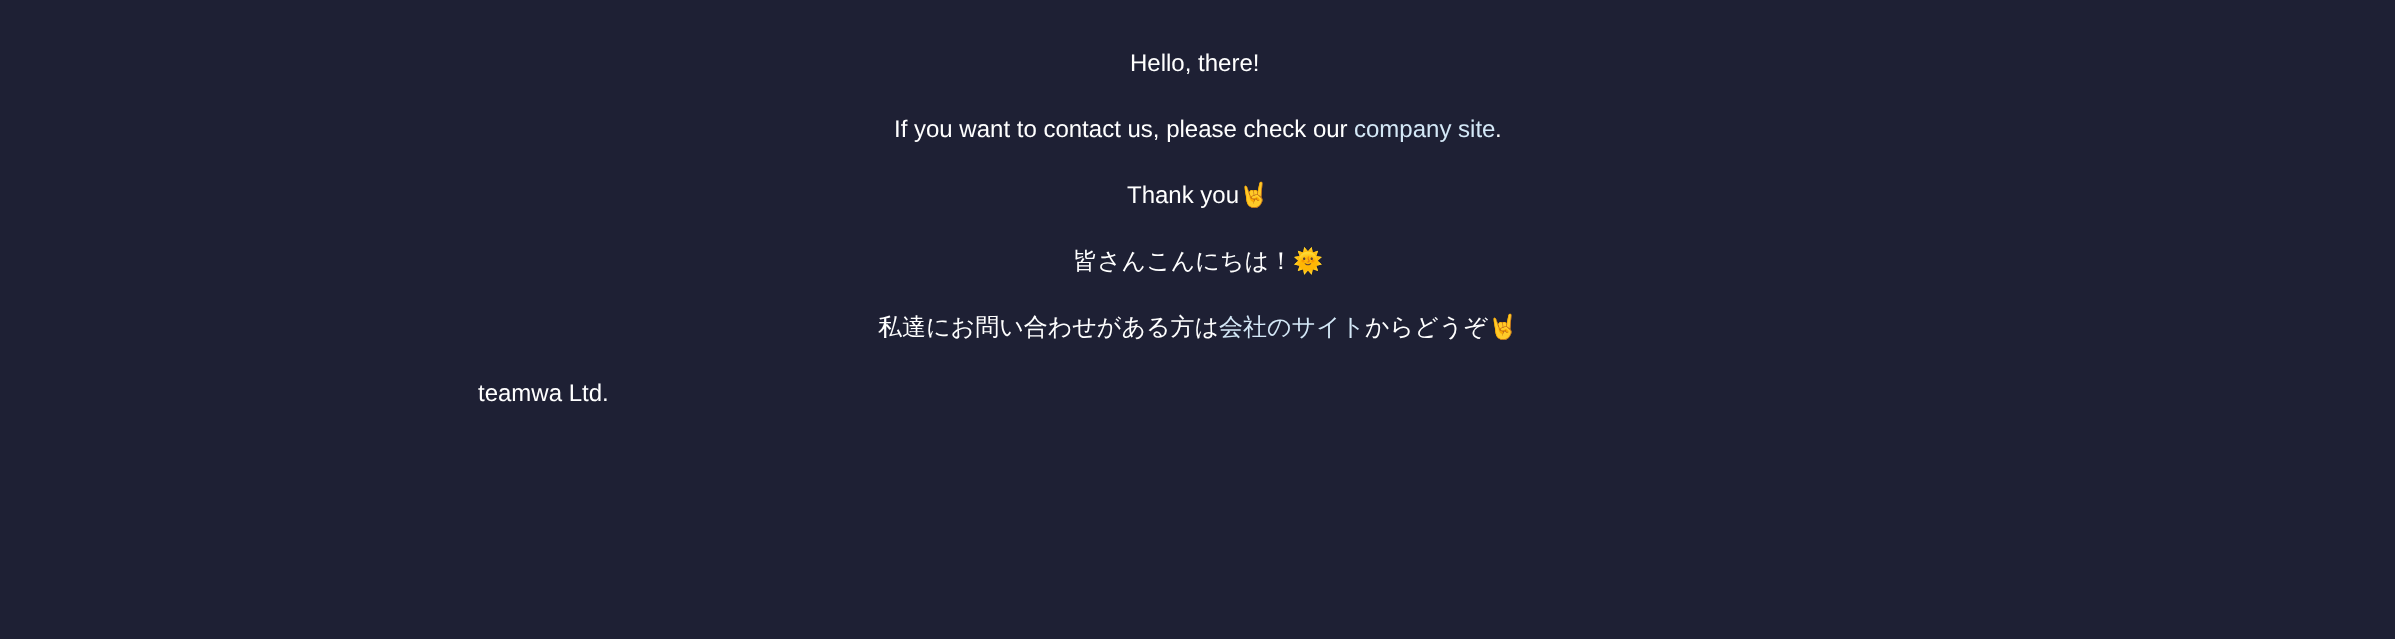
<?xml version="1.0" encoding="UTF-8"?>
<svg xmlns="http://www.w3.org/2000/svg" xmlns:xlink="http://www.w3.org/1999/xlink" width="2395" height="639">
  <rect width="100%" height="100%" fill="#1e2034" />
  <text x="1130" y="71" style="font-family: Liberation Sans; font-size: 24px; fill: #ffffff">Hello, there!</text>
  <text x="894" y="137" style="font-family: Liberation Sans; font-size: 24px; fill: #ffffff">If you want to contact us, please check our</text>
  <text x="1354" y="137" style="font-family: Liberation Sans; font-size: 24px; fill: #d4e8f7">company site</text>
  <text x="1495" y="137" style="font-family: Liberation Sans; font-size: 24px; fill: #ffffff">.</text>
  <text x="1127" y="203" style="font-family: Liberation Sans; font-size: 24px; fill: #ffffff">Thank you</text>
  <text x="1239" y="203" style="font-family: Noto Color Emoji; font-size: 24px; fill: #ffffff">🤘</text>
  <text x="1073" y="269" style="font-family: WenQuanYi Zen Hei; font-size: 24px; font-weight: 500; fill: #ffffff">皆さんこんにちは！</text>
  <text x="1293" y="269" style="font-family: Noto Color Emoji; font-size: 24px; fill: #ffffff">🌞</text>
  <text x="878" y="335" style="font-family: WenQuanYi Zen Hei; font-size: 24px; font-weight: 500; fill: #ffffff">私達にお問い合わせがある方は</text>
  <text x="1219" y="335" style="font-family: WenQuanYi Zen Hei; font-size: 24px; font-weight: 500; fill: #d4e8f7">会社のサイト</text>
  <text x="1365" y="335" style="font-family: WenQuanYi Zen Hei; font-size: 24px; font-weight: 500; fill: #ffffff">からどうぞ</text>
  <text x="1488" y="335" style="font-family: Noto Color Emoji; font-size: 24px; fill: #ffffff">🤘</text>
  <text x="478" y="401" style="font-family: Liberation Sans; font-size: 24px; fill: #ffffff">teamwa Ltd.</text>
</svg>
